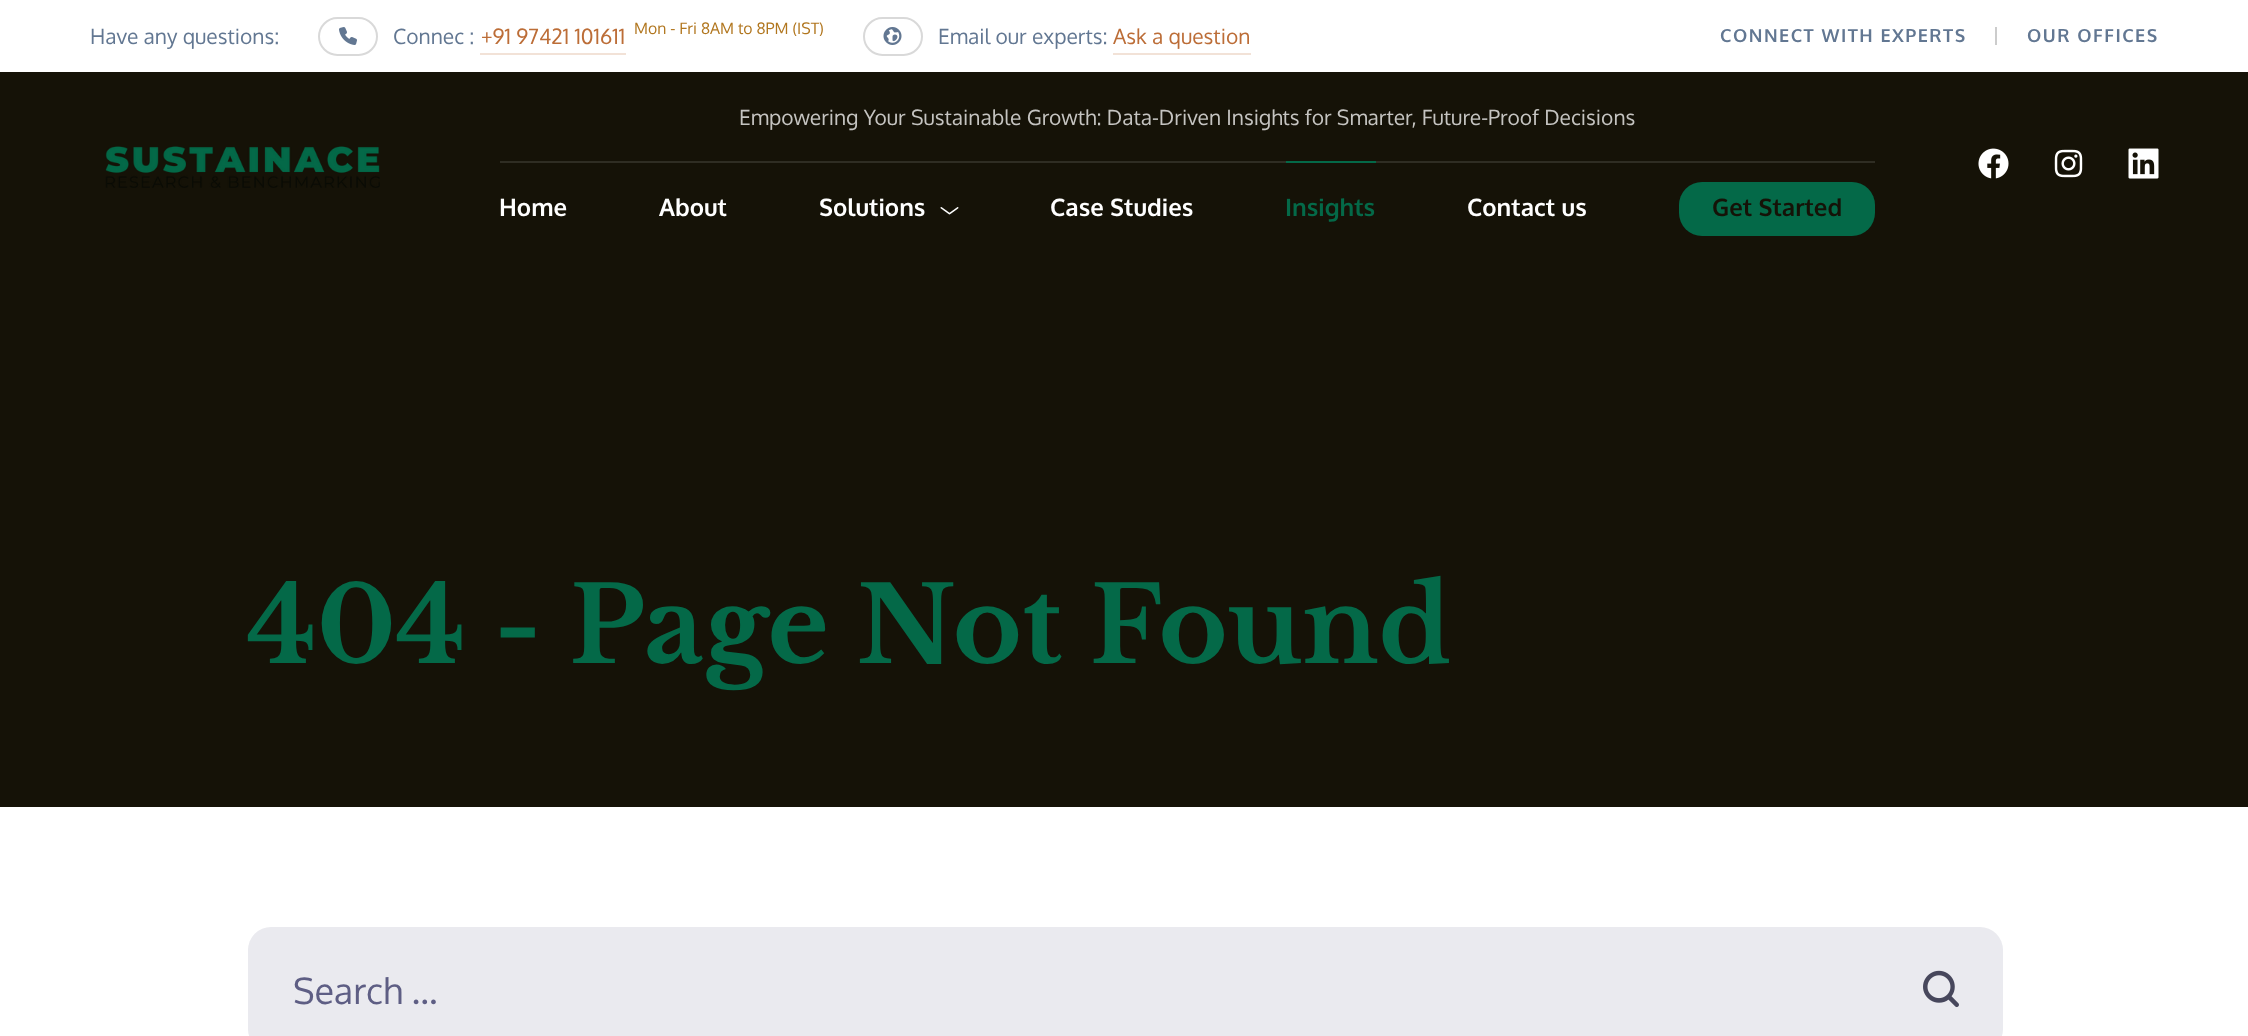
<?xml version="1.0" encoding="UTF-8"?>
<svg xmlns="http://www.w3.org/2000/svg" xmlns:xlink="http://www.w3.org/1999/xlink" width="2248" height="1036">
  <rect width="100%" height="100%" fill="#ffffff" />
  <rect x="319" y="18" width="58" height="37" rx="18.5" fill="none" stroke="#d9d9d9" stroke-width="2" />
  <image x="339" y="27" width="18" height="18" xlink:href="image1.png" />
  <rect x="480" y="53" width="146" height="2" fill="#f2e2d7" />
  <rect x="864" y="18" width="58" height="37" rx="18.5" fill="none" stroke="#d9d9d9" stroke-width="2" />
  <image x="883" y="27" width="19" height="18" xlink:href="image2.png" />
  <rect x="1113" y="53" width="138" height="2" fill="#f2e2d7" />
  <rect x="1995" y="27" width="2" height="18" fill="#cccccc" />
  <rect y="72" width="2248" height="735" fill="#151207" />
  <image x="105" y="146" width="275" height="42" xlink:href="image3.png" />
  <rect x="500" y="161" width="1375" height="2" fill="#2f2d23" />
  <image x="940" y="207" width="19" height="8" xlink:href="image4.png" />
  <rect x="1286" y="161" width="90" height="2" fill="#046948" />
  <rect x="1679" y="182" width="196" height="54" rx="23" fill="#046948" />
  <image x="1978" y="148" width="31" height="31" xlink:href="image5.png" />
  <image x="2054" y="149" width="29" height="29" xlink:href="image6.png" />
  <image x="2128" y="148" width="31" height="31" xlink:href="image7.png" />
  <rect x="248" y="927" width="1755" height="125" rx="23" fill="#eaeaef" />
  <image x="1923" y="970" width="36" height="38" xlink:href="image8.png" />
  <text x="90" y="44" style="font-family: Oxygen; font-size: 21px; fill: #627792">Have any questions:</text>
  <text x="393" y="44" style="font-family: Oxygen; font-size: 21px; fill: #627792">Connec :</text>
  <text x="481" y="44" style="font-family: Oxygen; font-size: 21px; fill: #bc6d37">+91 97421 101611</text>
  <text x="634" y="34" style="font-family: Oxygen; font-size: 15.75px; fill: #b1761e">Mon - Fri 8AM to 8PM (IST)</text>
  <text x="938" y="44" style="font-family: Oxygen; font-size: 21px; fill: #627792">Email our experts:</text>
  <text x="1113" y="44" style="font-family: Oxygen; font-size: 21px; fill: #bc6d37">Ask a question</text>
  <text x="1720" y="42" style="font-family: Oxygen; font-size: 18px; font-weight: bold; letter-spacing: 1.5px; fill: #627792">CONNECT WITH EXPERTS</text>
  <text x="2027" y="42" style="font-family: Oxygen; font-size: 18px; font-weight: bold; letter-spacing: 1.5px; fill: #627792">OUR OFFICES</text>
  <text x="739" y="125" style="font-family: Oxygen; font-size: 21px; fill: #c5c4c1">Empowering Your Sustainable Growth: Data-Driven Insights for Smarter, Future-Proof Decisions</text>
  <text x="499" y="216" style="font-family: Oxygen; font-size: 24px; font-weight: bold; fill: #ffffff">Home</text>
  <text x="659" y="216" style="font-family: Oxygen; font-size: 24px; font-weight: bold; fill: #ffffff">About</text>
  <text x="819" y="216" style="font-family: Oxygen; font-size: 24px; font-weight: bold; fill: #ffffff">Solutions</text>
  <text x="1050" y="216" style="font-family: Oxygen; font-size: 24px; font-weight: bold; fill: #ffffff">Case Studies</text>
  <text x="1285" y="216" style="font-family: Oxygen; font-size: 24px; font-weight: bold; fill: #046948">Insights</text>
  <text x="1467" y="216" style="font-family: Oxygen; font-size: 24px; font-weight: bold; fill: #ffffff">Contact us</text>
  <text x="1712" y="216" style="font-family: Oxygen; font-size: 24px; font-weight: bold; fill: #151207">Get Started</text>
  <text x="247" y="663" style="font-family: Libre Baskerville; font-size: 105px; font-weight: bold; fill: #046948">404 - Page Not Found</text>
  <text x="293" y="1004" style="font-family: Oxygen; font-size: 36px; fill: #5e5e84">Search …</text>
</svg>
